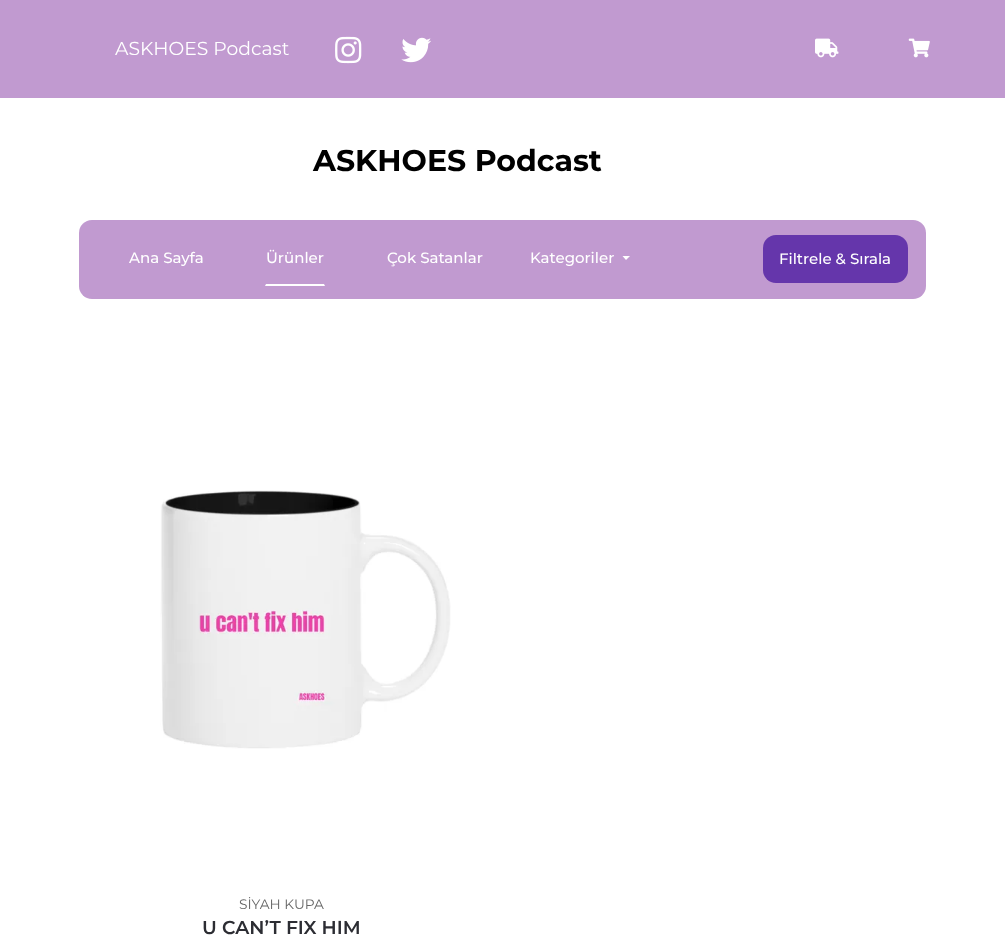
<?xml version="1.0" encoding="UTF-8"?>
<svg xmlns="http://www.w3.org/2000/svg" xmlns:xlink="http://www.w3.org/1999/xlink" width="1005" height="940">
  <rect width="100%" height="100%" fill="#ffffff" />
  <rect width="1005" height="98" fill="#c19ad0" />
  <image x="335" y="36" width="27" height="28" xlink:href="image1.png" />
  <image x="401" y="37" width="30" height="26" xlink:href="image2.png" />
  <image x="815" y="38" width="24" height="20" xlink:href="image3.png" />
  <image x="908" y="38" width="22" height="20" xlink:href="image4.png" />
  <rect x="79" y="220" width="847" height="79" rx="13" fill="#c19ad0" />
  <path d="M 325 286 h -60 l 1 -2 h 58 z" fill="#ffffff" />
  <path d="M 622.5 256 h 7.5 l -4 4 z" fill="#ffffff" />
  <rect x="763" y="235" width="145" height="48" rx="13" fill="#6536ab" />
  <image x="160" y="490" width="291" height="259" xlink:href="image5.png" />
  <text x="115" y="55" style="font-family: Montserrat; font-size: 18.75px; fill: #ffffff">ASKHOES Podcast</text>
  <text x="313" y="171" style="font-family: Montserrat; font-size: 30px; font-weight: bold; fill: #000000">ASKHOES Podcast</text>
  <text x="129" y="263" style="font-family: Montserrat; font-size: 15px; font-weight: 500; fill: #ffffff">Ana Sayfa</text>
  <text x="266" y="263" style="font-family: Montserrat; font-size: 15px; font-weight: 500; fill: #ffffff">Ürünler</text>
  <text x="387" y="263" style="font-family: Montserrat; font-size: 15px; font-weight: 500; fill: #ffffff">Çok Satanlar</text>
  <text x="530" y="263" style="font-family: Montserrat; font-size: 15px; font-weight: 500; fill: #ffffff">Kategoriler</text>
  <text x="779" y="264" style="font-family: Montserrat; font-size: 15px; font-weight: 500; fill: #ffffff">Filtrele &amp; Sırala</text>
  <text x="239" y="909" style="font-family: Montserrat; font-size: 13.75px; fill: #666666">SİYAH KUPA</text>
  <text x="202" y="934" style="font-family: Montserrat; font-size: 18.75px; font-weight: 600; fill: #2c2d33">U CAN’T FIX HIM</text>
</svg>
